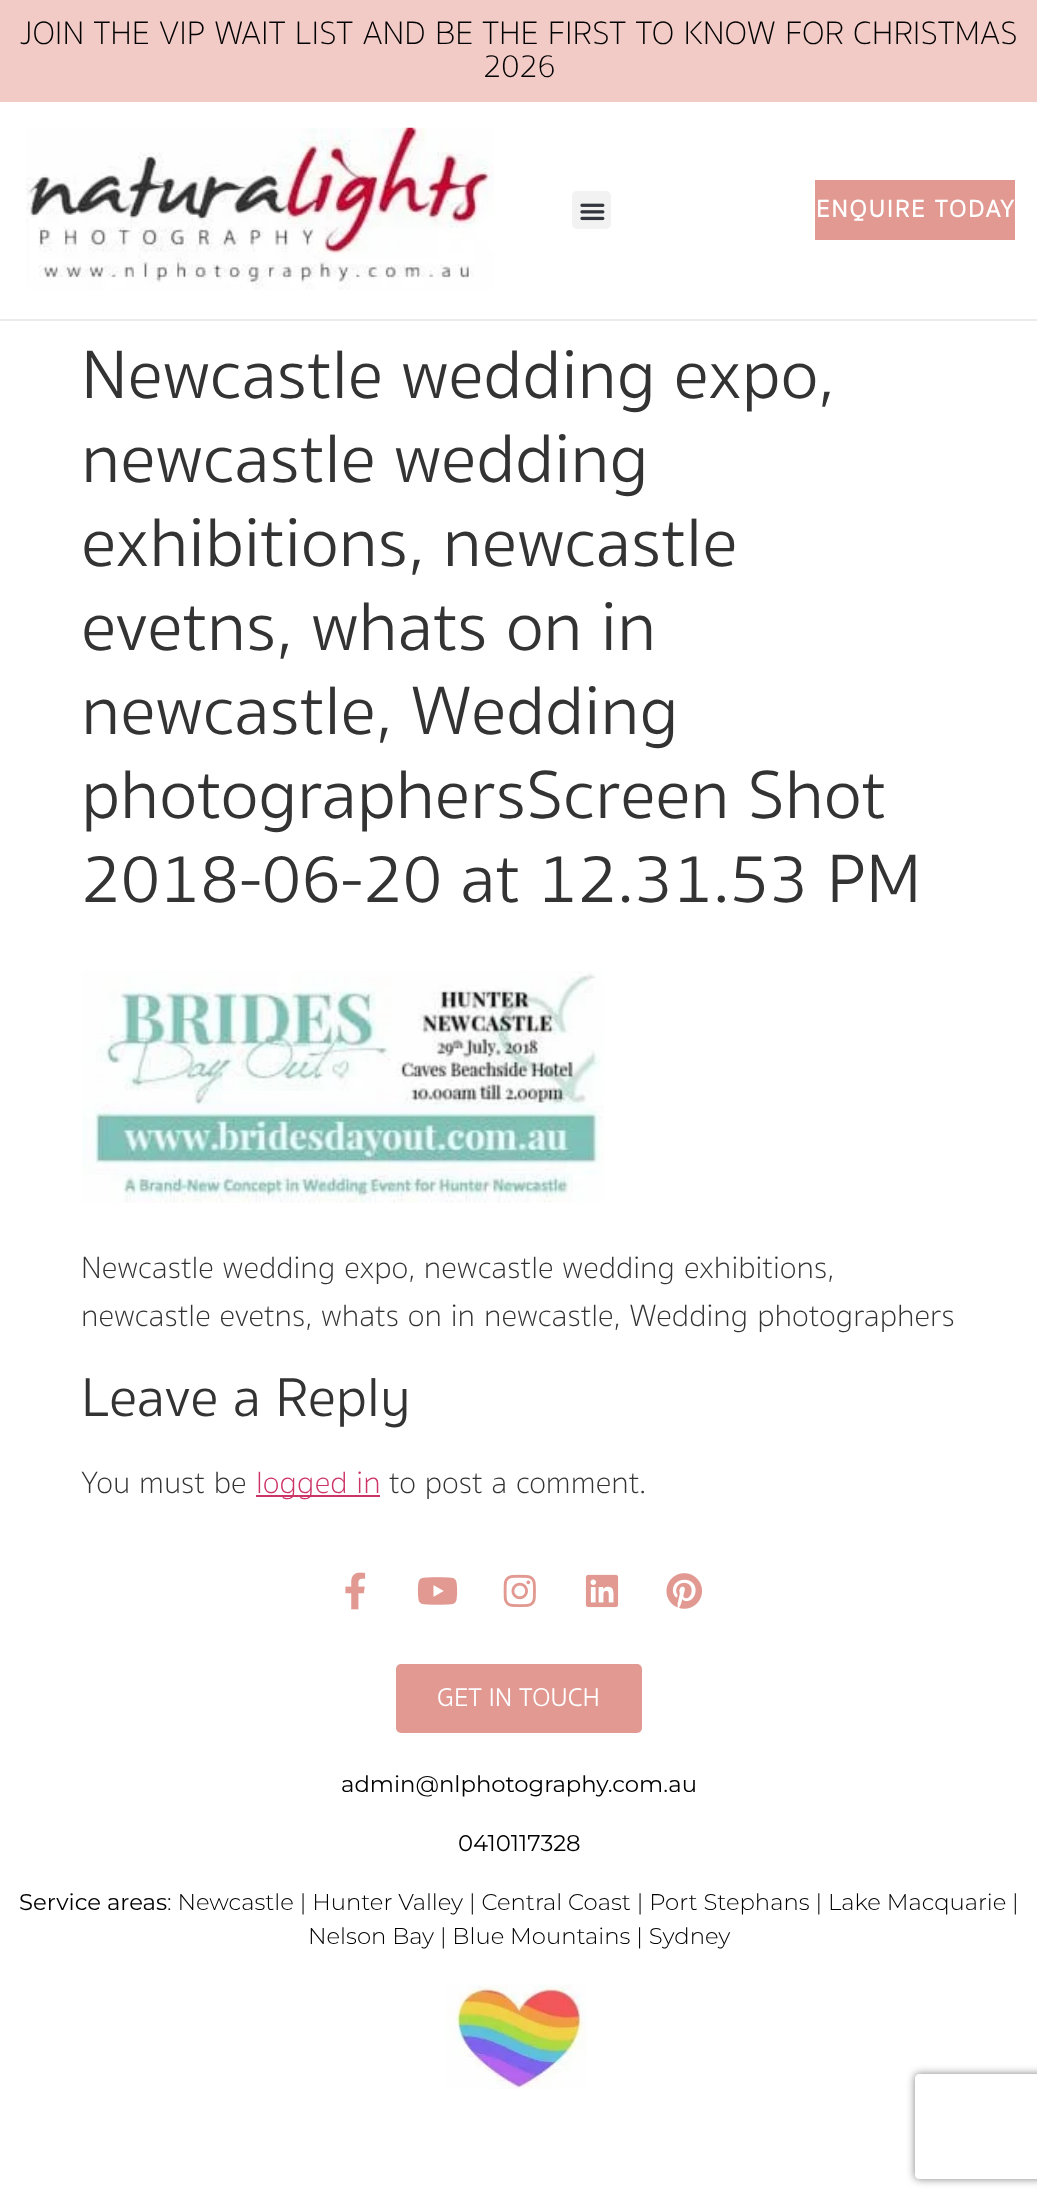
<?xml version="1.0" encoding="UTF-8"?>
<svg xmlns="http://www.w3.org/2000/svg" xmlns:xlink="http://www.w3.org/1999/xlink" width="1037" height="2202">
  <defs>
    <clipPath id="clip1"><path d="M 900 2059 h 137 v 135 h -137 z m 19 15 h 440 c 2 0 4 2 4 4 v 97 c 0 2 -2 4 -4 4 h -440 c -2 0 -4 -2 -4 -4 v -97 c 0 -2 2 -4 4 -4 z" clip-rule="evenodd" /></clipPath>
  </defs>
  <rect width="100%" height="100%" fill="#ffffff" />
  <rect width="1037" height="102" fill="#f2cac6" />
  <rect y="319" width="1037" height="2" fill="#ebebeb" />
  <image x="26" y="127" width="468" height="163" xlink:href="image1.png" />
  <rect x="572" y="191" width="39" height="38" rx="5" fill="#f2f2f2" />
  <image x="580" y="203" width="25" height="18" xlink:href="image2.png" />
  <rect x="812.5" y="177.5" width="205" height="65" rx="2.5" fill="#e19992" stroke="#ffffff" stroke-width="5" />
  <image x="82" y="971" width="522" height="232" xlink:href="image3.png" />
  <rect x="256" y="1495" width="124" height="2" fill="#cc3366" />
  <image x="345" y="1572" width="21" height="38" xlink:href="image4.png" />
  <image x="417" y="1577" width="41" height="28" xlink:href="image5.png" />
  <image x="503" y="1574" width="33" height="34" xlink:href="image6.png" />
  <image x="585" y="1574" width="34" height="34" xlink:href="image7.png" />
  <image x="666" y="1573" width="36" height="36" xlink:href="image8.png" />
  <rect x="396" y="1664" width="246" height="69" rx="5" fill="#e19992" />
  <image x="445" y="1984" width="142" height="105" xlink:href="image9.png" />
  <g clip-path="url(#clip1)">
    <rect x="915" y="2074" width="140" height="105" rx="4" fill="#808080" filter="blur(4.5px)" />
  </g>
  <text x="20" y="44" style="font-family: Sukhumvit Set; font-size: 33.25px; font-weight: 100; fill: #000000">JOIN THE VIP WAIT LIST AND BE THE FIRST TO KNOW FOR CHRISTMAS</text>
  <text x="483" y="77" style="font-family: Sukhumvit Set; font-size: 33.25px; font-weight: 100; fill: #000000">2026</text>
  <text x="816" y="217" style="font-family: Sukhumvit Set; font-size: 24.5px; font-weight: bold; letter-spacing: 2px; fill: #ffffff">ENQUIRE TODAY</text>
  <text x="81" y="398" style="font-family: Sukhumvit Set; font-size: 70px; font-weight: 300; fill: #333333">Newcastle wedding expo,</text>
  <text x="81" y="482" style="font-family: Sukhumvit Set; font-size: 70px; font-weight: 300; fill: #333333">newcastle wedding</text>
  <text x="81" y="566" style="font-family: Sukhumvit Set; font-size: 70px; font-weight: 300; fill: #333333">exhibitions, newcastle</text>
  <text x="81" y="650" style="font-family: Sukhumvit Set; font-size: 70px; font-weight: 300; fill: #333333">evetns, whats on in</text>
  <text x="81" y="734" style="font-family: Sukhumvit Set; font-size: 70px; font-weight: 300; fill: #333333">newcastle, Wedding</text>
  <text x="81" y="818" style="font-family: Sukhumvit Set; font-size: 70px; font-weight: 300; fill: #333333">photographersScreen Shot</text>
  <text x="81" y="902" style="font-family: Sukhumvit Set; font-size: 70px; font-weight: 300; fill: #333333">2018-06-20 at 12.31.53 PM</text>
  <text x="81" y="1278" style="font-family: Sukhumvit Set; font-size: 31.5px; font-weight: 100; fill: #333333">Newcastle wedding expo, newcastle wedding exhibitions,</text>
  <text x="81" y="1326" style="font-family: Sukhumvit Set; font-size: 31.5px; font-weight: 100; fill: #333333">newcastle evetns, whats on in newcastle, Wedding photographers</text>
  <text x="81" y="1416" style="font-family: Sukhumvit Set; font-size: 56px; font-weight: 300; fill: #333333">Leave a Reply</text>
  <text x="81" y="1493" style="font-family: Sukhumvit Set; font-size: 31.5px; font-weight: 100; fill: #333333">You must be</text>
  <text x="256" y="1493" style="font-family: Sukhumvit Set; font-size: 31.5px; font-weight: 100; fill: #cc3366">logged in</text>
  <text x="389" y="1493" style="font-family: Sukhumvit Set; font-size: 31.5px; font-weight: 100; fill: #333333">to post a comment.</text>
  <text x="437" y="1706" style="font-family: Sukhumvit Set; font-size: 26.25px; font-weight: 300; fill: #ffffff">GET IN TOUCH</text>
  <text x="341" y="1792" style="font-family: Montserrat; font-size: 22.75px; fill: #000000">admin@nlphotography.com.au</text>
  <text x="458" y="1851" style="font-family: Montserrat; font-size: 22.75px; fill: #000000">0410117328</text>
  <text x="19" y="1910" style="font-family: Montserrat; font-size: 22.75px; fill: #000000">Service areas</text>
  <text x="167" y="1910" style="font-family: Montserrat; font-size: 22.75px; font-weight: 300; fill: #000000">: Newcastle | Hunter Valley | Central Coast | Port Stephans | Lake Macquarie |</text>
  <text x="308" y="1944" style="font-family: Montserrat; font-size: 22.75px; font-weight: 300; fill: #000000">Nelson Bay | Blue Mountains | Sydney</text>
</svg>
